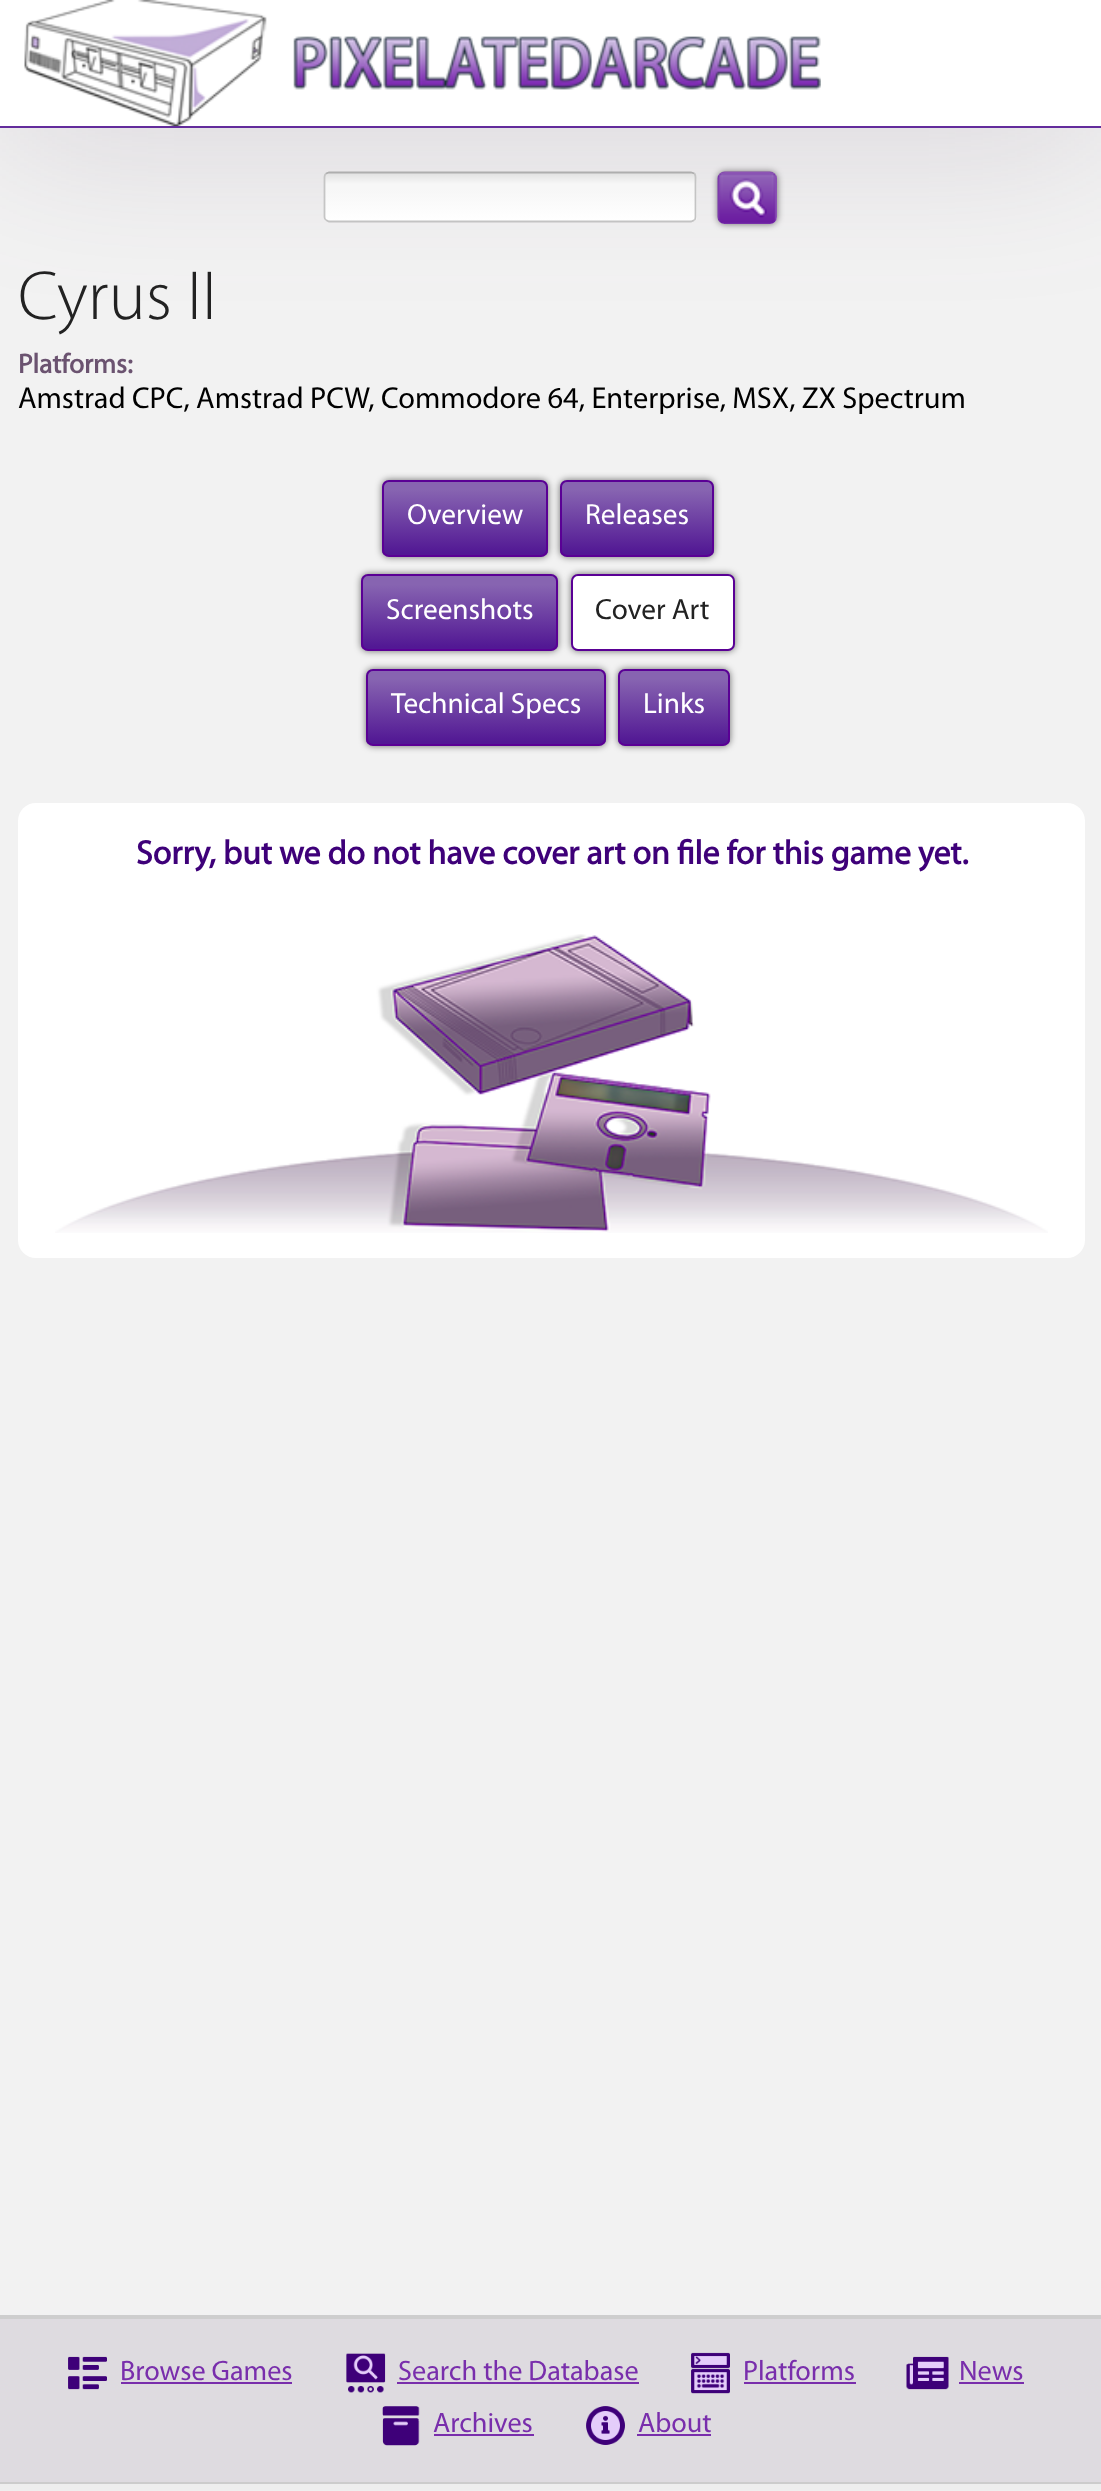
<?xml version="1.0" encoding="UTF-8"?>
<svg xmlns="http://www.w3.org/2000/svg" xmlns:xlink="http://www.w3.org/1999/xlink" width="1101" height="2491">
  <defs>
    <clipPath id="clip1"><rect x="324" y="172" width="373" height="50" rx="5" /></clipPath>
    <linearGradient id="g1" gradientUnits="userSpaceOnUse" x1="510" y1="173" x2="510" y2="221"><stop offset="0.02" stop-color="#e3e3e3" /><stop offset="0.23" stop-color="#f7f7f7" /><stop offset="0.35" stop-color="#f7f7f7" /><stop offset="1" stop-color="#ffffff" /></linearGradient>
    <linearGradient id="g2" gradientUnits="userSpaceOnUse" x1="510" y1="220" x2="510" y2="268"><stop offset="0.02" stop-color="#e3e3e3" /><stop offset="0.23" stop-color="#f7f7f7" /><stop offset="0.35" stop-color="#f7f7f7" /><stop offset="1" stop-color="#ffffff" /></linearGradient>
    <clipPath id="clip2"><path d="M 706 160 h 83 v 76 h -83 z m 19 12 h 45 c 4 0 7 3 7 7 v 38 c 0 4 -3 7 -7 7 h -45 c -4 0 -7 -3 -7 -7 v -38 c 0 -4 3 -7 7 -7 z" clip-rule="evenodd" /></clipPath>
    <clipPath id="clip3"><rect x="382" y="480" width="166" height="77" rx="7" /></clipPath>
    <linearGradient id="g3" gradientUnits="userSpaceOnUse" x1="465" y1="481" x2="465" y2="555"><stop offset="0.12" stop-color="#8764b1" /><stop offset="0.97" stop-color="#521894" /></linearGradient>
    <clipPath id="clip4"><rect x="560" y="480" width="154" height="77" rx="7" /></clipPath>
    <linearGradient id="g4" gradientUnits="userSpaceOnUse" x1="637" y1="481" x2="637" y2="555"><stop offset="0.12" stop-color="#8764b1" /><stop offset="0.97" stop-color="#521894" /></linearGradient>
    <clipPath id="clip5"><rect x="361" y="574" width="197" height="77" rx="7" /></clipPath>
    <linearGradient id="g5" gradientUnits="userSpaceOnUse" x1="459" y1="576" x2="459" y2="649"><stop offset="0.12" stop-color="#8764b1" /><stop offset="0.97" stop-color="#521894" /></linearGradient>
    <clipPath id="clip6"><rect x="366" y="669" width="240" height="77" rx="7" /></clipPath>
    <linearGradient id="g6" gradientUnits="userSpaceOnUse" x1="486" y1="670" x2="486" y2="744"><stop offset="0.12" stop-color="#8764b1" /><stop offset="0.97" stop-color="#521894" /></linearGradient>
    <clipPath id="clip7"><rect x="618" y="669" width="112" height="77" rx="7" /></clipPath>
    <linearGradient id="g7" gradientUnits="userSpaceOnUse" x1="674" y1="670" x2="674" y2="744"><stop offset="0.12" stop-color="#8764b1" /><stop offset="0.97" stop-color="#521894" /></linearGradient>
  </defs>
  <rect width="100%" height="100%" fill="#f2f2f2" />
  <rect width="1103" height="128" fill="#6b5370" fill-opacity="0.22" filter="blur(82px)" />
  <rect width="1101" height="126" fill="#ffffff" />
  <rect y="126" width="1101" height="2" fill="#632c9c" />
  <image x="24" y="0" width="797" height="126" xlink:href="image1.png" />
  <g clip-path="url(#clip1)">
    <rect x="324" y="173" width="373" height="48" fill="url(#g1)" />
    <rect x="324" y="221" width="373" height="1" fill="url(#g2)" />
  </g>
  <path d="M 326 173.5 l 3 -1 h 362 l 3.5 1" fill="none" stroke="#aeaeae" stroke-width="1.8" />
  <path d="M 694.5 173.5 c 0.5 1 1 2 1 3.5 v 40 c 0 1 -0.5 2.5 -1 3" fill="none" stroke="#c4c4c4" stroke-width="1.8" />
  <path d="M 694.5 220 l -3.5 1.5 h -362 l -3 -1.5" fill="none" stroke="#c3c3c3" stroke-width="1.8" />
  <path d="M 326 220 c -1 -0.5 -1.5 -2 -1.5 -3 v -40 c 0 -1.5 0.5 -2.5 1.5 -3.5" fill="none" stroke="#c5c5c5" stroke-width="1.8" />
  <g clip-path="url(#clip2)">
    <rect x="718" y="172" width="59" height="52" rx="7" fill="#000000" fill-opacity="0.55" filter="blur(3.5px)" />
  </g>
  <image x="717" y="171" width="60" height="53" xlink:href="image2.png" />
  <rect x="382" y="480" width="166" height="77" rx="7" fill="#000000" fill-opacity="0.55" filter="blur(3.5px)" />
  <g clip-path="url(#clip3)">
    <rect x="382" y="481" width="166" height="74" fill="url(#g3)" />
  </g>
  <rect x="383" y="481" width="164" height="75" rx="6" fill="none" stroke="#5a0095" stroke-width="2" />
  <rect x="560" y="480" width="154" height="77" rx="7" fill="#000000" fill-opacity="0.55" filter="blur(3.5px)" />
  <g clip-path="url(#clip4)">
    <rect x="560" y="481" width="154" height="74" fill="url(#g4)" />
  </g>
  <rect x="561" y="481" width="152" height="75" rx="6" fill="none" stroke="#5a0095" stroke-width="2" />
  <rect x="361" y="574" width="197" height="77" rx="7" fill="#000000" fill-opacity="0.55" filter="blur(3.5px)" />
  <g clip-path="url(#clip5)">
    <rect x="361" y="576" width="197" height="73" fill="url(#g5)" />
  </g>
  <rect x="362" y="575" width="195" height="75" rx="6" fill="none" stroke="#5a0095" stroke-width="2" />
  <rect x="571" y="574" width="164" height="77" rx="7" fill="#000000" fill-opacity="0.55" filter="blur(3.5px)" />
  <rect x="572" y="575" width="162" height="75" rx="6" fill="#ffffff" stroke="#5a0095" stroke-width="2" />
  <rect x="366" y="669" width="240" height="77" rx="7" fill="#000000" fill-opacity="0.55" filter="blur(3.5px)" />
  <g clip-path="url(#clip6)">
    <rect x="366" y="670" width="240" height="74" fill="url(#g6)" />
  </g>
  <rect x="367" y="670" width="238" height="75" rx="6" fill="none" stroke="#5a0095" stroke-width="2" />
  <rect x="618" y="669" width="112" height="77" rx="7" fill="#000000" fill-opacity="0.55" filter="blur(3.5px)" />
  <g clip-path="url(#clip7)">
    <rect x="618" y="670" width="112" height="74" fill="url(#g7)" />
  </g>
  <rect x="619" y="670" width="110" height="75" rx="6" fill="none" stroke="#5a0095" stroke-width="2" />
  <rect x="18" y="803" width="1067" height="455" rx="18" fill="#ffffff" />
  <image x="55" y="934" width="993" height="299" xlink:href="image3.png" />
  <rect y="2484" width="1101" height="7" fill="#eeeeee" />
  <rect y="2315" width="1101" height="4" fill="#cecece" />
  <rect y="2319" width="1101" height="163" fill="#dedbe0" />
  <rect y="2482" width="1101" height="2" fill="#cccccc" />
  <image x="68" y="2356" width="39" height="34" xlink:href="image4.png" />
  <rect x="121" y="2382" width="171" height="2" fill="#792eac" />
  <image x="346" y="2353" width="40" height="40" xlink:href="image5.png" />
  <rect x="397" y="2382" width="242" height="2" fill="#792eac" />
  <image x="691" y="2352" width="39" height="42" xlink:href="image6.png" />
  <rect x="744" y="2382" width="112" height="2" fill="#792eac" />
  <image x="906" y="2356" width="43" height="34" xlink:href="image7.png" />
  <rect x="959" y="2382" width="65" height="2" fill="#792eac" />
  <image x="382" y="2406" width="38" height="40" xlink:href="image8.png" />
  <rect x="434" y="2434" width="100" height="2" fill="#792eac" />
  <image x="586" y="2406" width="39" height="39" xlink:href="image9.png" />
  <rect x="637" y="2434" width="74" height="2" fill="#792eac" />
  <text x="18" y="319" style="font-family: Myriad; font-size: 70px; font-weight: 300; fill: #222222">Cyrus II</text>
  <text x="18" y="373" style="font-family: Myriad; font-size: 27.5px; font-weight: bold; fill: #6b5370">Platforms:</text>
  <text x="18" y="408" style="font-family: Myriad; font-size: 30.4px; fill: #000000">Amstrad CPC, Amstrad PCW, Commodore 64, Enterprise, MSX, ZX Spectrum</text>
  <text x="407" y="524" style="font-family: Myriad; font-size: 29.25px; fill: #ffffff">Overview</text>
  <text x="585" y="524" style="font-family: Myriad; font-size: 29.25px; fill: #ffffff">Releases</text>
  <text x="386" y="619" style="font-family: Myriad; font-size: 29.25px; fill: #ffffff">Screenshots</text>
  <text x="595" y="619" style="font-family: Myriad; font-size: 29.25px; fill: #222222">Cover Art</text>
  <text x="391" y="713" style="font-family: Myriad; font-size: 29.25px; fill: #ffffff">Technical Specs</text>
  <text x="643" y="713" style="font-family: Myriad; font-size: 29.25px; fill: #ffffff">Links</text>
  <text x="136" y="864" style="font-family: Myriad; font-size: 33.7px; font-weight: bold; fill: #3e0079">Sorry, but we do not have cover art on file for this game yet.</text>
  <text x="120" y="2380" style="font-family: Myriad; font-size: 28.25px; fill: #792eac">Browse Games</text>
  <text x="398" y="2380" style="font-family: Myriad; font-size: 28.25px; fill: #792eac">Search the Database</text>
  <text x="743" y="2380" style="font-family: Myriad; font-size: 28.25px; fill: #792eac">Platforms</text>
  <text x="959" y="2380" style="font-family: Myriad; font-size: 28.25px; fill: #792eac">News</text>
  <text x="433" y="2432" style="font-family: Myriad; font-size: 28.25px; fill: #792eac">Archives</text>
  <text x="638" y="2432" style="font-family: Myriad; font-size: 28.25px; fill: #792eac">About</text>
</svg>
